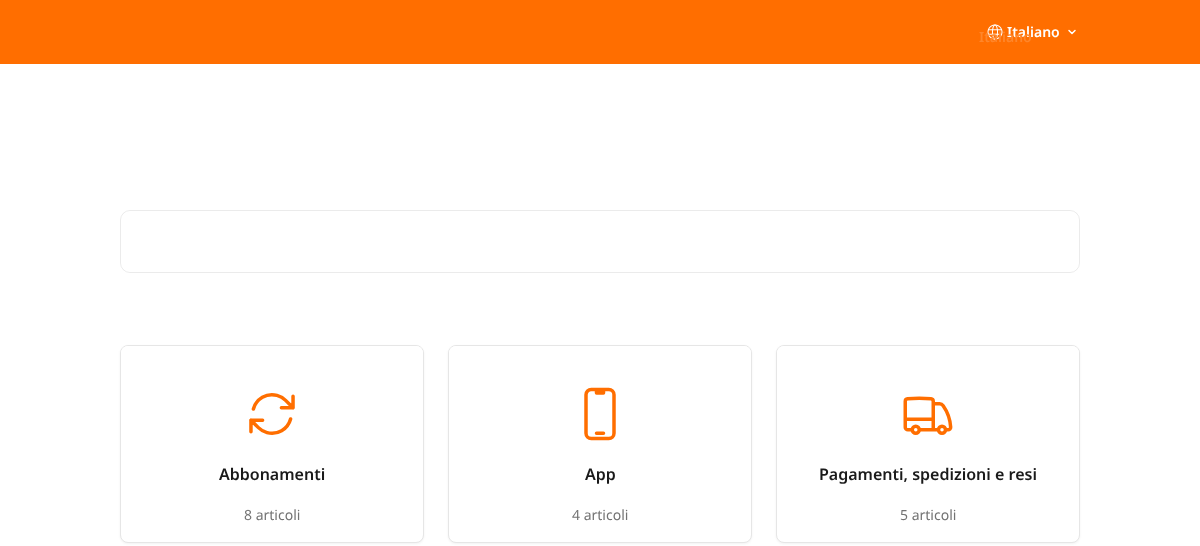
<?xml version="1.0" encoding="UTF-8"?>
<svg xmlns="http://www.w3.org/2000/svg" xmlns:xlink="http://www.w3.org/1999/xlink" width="1200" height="546">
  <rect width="100%" height="100%" fill="#ffffff" />
  <rect width="1200" height="64" fill="#ff6e00" />
  <image x="987" y="24" width="16" height="16" xlink:href="image1.png" />
  <path d="M 1069 30.5 l 3 3 l 3 -3" fill="none" stroke="#ffffff" stroke-width="1.5" stroke-linecap="round" stroke-linejoin="round" />
  <rect x="120.5" y="210.5" width="959" height="62" rx="9.5" fill="none" stroke="#000000" stroke-opacity="0.08" />
  <rect x="120" y="346" width="304" height="198" rx="8" fill="#000000" fill-opacity="0.05" filter="blur(1px)" />
  <rect x="120.5" y="345.5" width="303" height="197" rx="7.5" fill="#ffffff" stroke="#e6e6e6" />
  <path d="M 128 346 h 288 c 4 0 7 3 7 7 v 97 h -302 v -97 c 0 -4 3 -7 7 -7 z" fill="#ffffff" />
  <image x="249" y="393" width="46" height="42" xlink:href="image2.png" />
  <rect x="448" y="346" width="304" height="198" rx="8" fill="#000000" fill-opacity="0.05" filter="blur(1px)" />
  <rect x="448.5" y="345.5" width="303" height="197" rx="7.5" fill="#ffffff" stroke="#e6e6e6" />
  <path d="M 456 346 h 288 c 4 0 7 3 7 7 v 97 h -302 v -97 c 0 -4 3 -7 7 -7 z" fill="#ffffff" />
  <image x="584" y="387" width="32" height="54" xlink:href="image3.png" />
  <rect x="776" y="346" width="304" height="198" rx="8" fill="#000000" fill-opacity="0.05" filter="blur(1px)" />
  <rect x="776.5" y="345.5" width="303" height="197" rx="7.5" fill="#ffffff" stroke="#e6e6e6" />
  <path d="M 784 346 h 288 c 4 0 7 3 7 7 v 97 h -302 v -97 c 0 -4 3 -7 7 -7 z" fill="#ffffff" />
  <image x="903" y="396" width="50" height="39" xlink:href="image4.png" />
  <text x="1007" y="37" style="font-family: Noto Sans; font-size: 14px; font-weight: 600; fill: #ffffff">Italiano</text>
  <text x="979" y="42" style="font-family: Noto Sans; font-size: 14px; font-weight: 600; fill: #ff862a">Italiano</text>
  <text x="219" y="480" style="font-family: Noto Sans; font-size: 16px; font-weight: 600; fill: #1a1a1a">Abbonamenti</text>
  <text x="244" y="520" style="font-family: Noto Sans; font-size: 14px; fill: #737373">8 articoli</text>
  <text x="585" y="480" style="font-family: Noto Sans; font-size: 16px; font-weight: 600; fill: #1a1a1a">App</text>
  <text x="572" y="520" style="font-family: Noto Sans; font-size: 14px; fill: #737373">4 articoli</text>
  <text x="819" y="480" style="font-family: Noto Sans; font-size: 16px; font-weight: 600; fill: #1a1a1a">Pagamenti, spedizioni e resi</text>
  <text x="900" y="520" style="font-family: Noto Sans; font-size: 14px; fill: #737373">5 articoli</text>
</svg>
